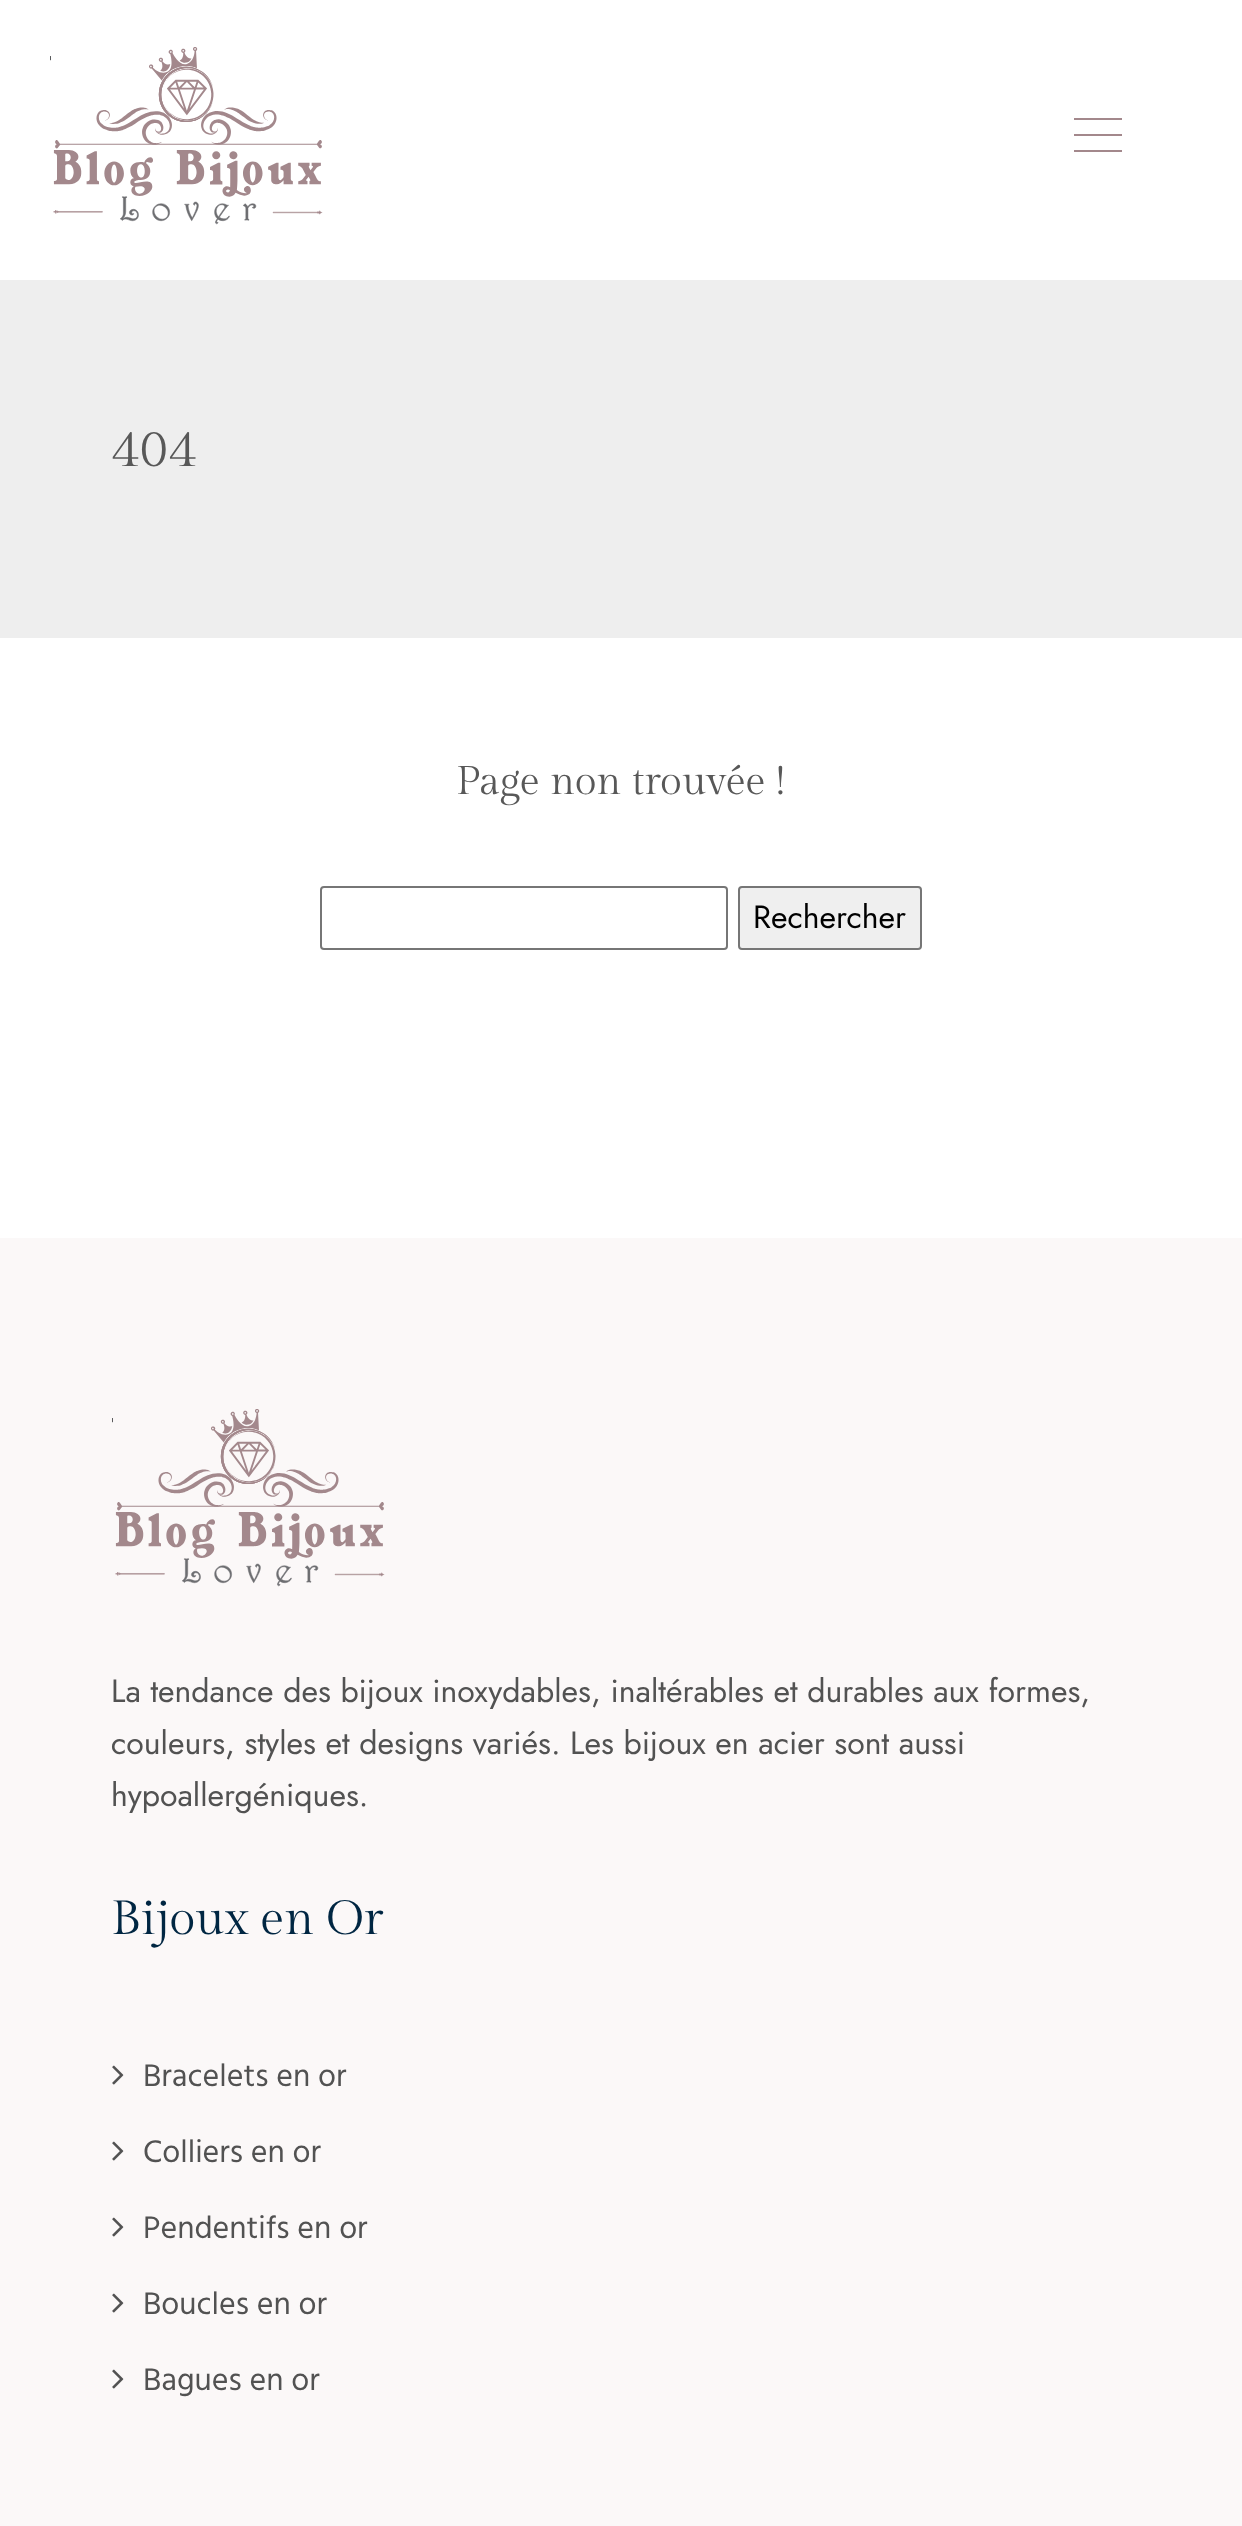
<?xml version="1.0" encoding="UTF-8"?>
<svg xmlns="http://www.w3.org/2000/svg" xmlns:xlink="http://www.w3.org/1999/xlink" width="1242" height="2526">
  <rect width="100%" height="100%" fill="#ffffff" />
  <image x="50" y="47" width="273" height="178" xlink:href="image1.png" />
  <rect x="1074" y="118" width="48" height="2" fill="#a3888c" />
  <rect x="1074" y="134" width="48" height="2" fill="#a3888c" />
  <rect x="1074" y="150" width="48" height="2" fill="#a3888c" />
  <rect y="280" width="1242" height="358" fill="#eeeeee" />
  <rect x="321" y="887" width="406" height="62" rx="3" fill="none" stroke="#767676" stroke-width="2" />
  <rect x="739" y="887" width="182" height="62" rx="3" fill="#efefef" stroke="#767676" stroke-width="2" />
  <rect y="1238" width="1242" height="1288" fill="#fbf8f8" />
  <image x="112" y="1409" width="273" height="178" xlink:href="image2.png" />
  <image x="112" y="2065" width="12" height="20" xlink:href="image3.png" />
  <image x="112" y="2141" width="12" height="20" xlink:href="image3.png" />
  <image x="112" y="2217" width="12" height="20" xlink:href="image3.png" />
  <image x="112" y="2293" width="12" height="20" xlink:href="image3.png" />
  <image x="112" y="2369" width="12" height="20" xlink:href="image3.png" />
  <text x="111" y="466" style="font-family: Gilda Display; font-size: 52px; fill: #585858">404</text>
  <text x="456" y="794" style="font-family: Gilda Display; font-size: 40px; fill: #585858">Page non trouvée !</text>
  <text x="753" y="928" style="font-family: Jost; font-size: 32px; fill: #000000">Rechercher</text>
  <text x="111" y="1702" style="font-family: Jost; font-size: 32px; fill: #525252">La tendance des bijoux inoxydables, inaltérables et durables aux formes,</text>
  <text x="111" y="1754" style="font-family: Jost; font-size: 32px; fill: #525252">couleurs, styles et designs variés. Les bijoux en acier sont aussi</text>
  <text x="111" y="1806" style="font-family: Jost; font-size: 32px; fill: #525252">hypoallergéniques.</text>
  <text x="111" y="1934" style="font-family: Gilda Display; font-size: 48px; fill: #002642">Bijoux en Or</text>
  <text x="143" y="2086" style="font-family: Hind; font-size: 32px; fill: #525252">Bracelets en or</text>
  <text x="143" y="2162" style="font-family: Hind; font-size: 32px; fill: #525252">Colliers en or</text>
  <text x="143" y="2238" style="font-family: Hind; font-size: 32px; fill: #525252">Pendentifs en or</text>
  <text x="143" y="2314" style="font-family: Hind; font-size: 32px; fill: #525252">Boucles en or</text>
  <text x="143" y="2390" style="font-family: Hind; font-size: 32px; fill: #525252">Bagues en or</text>
</svg>
